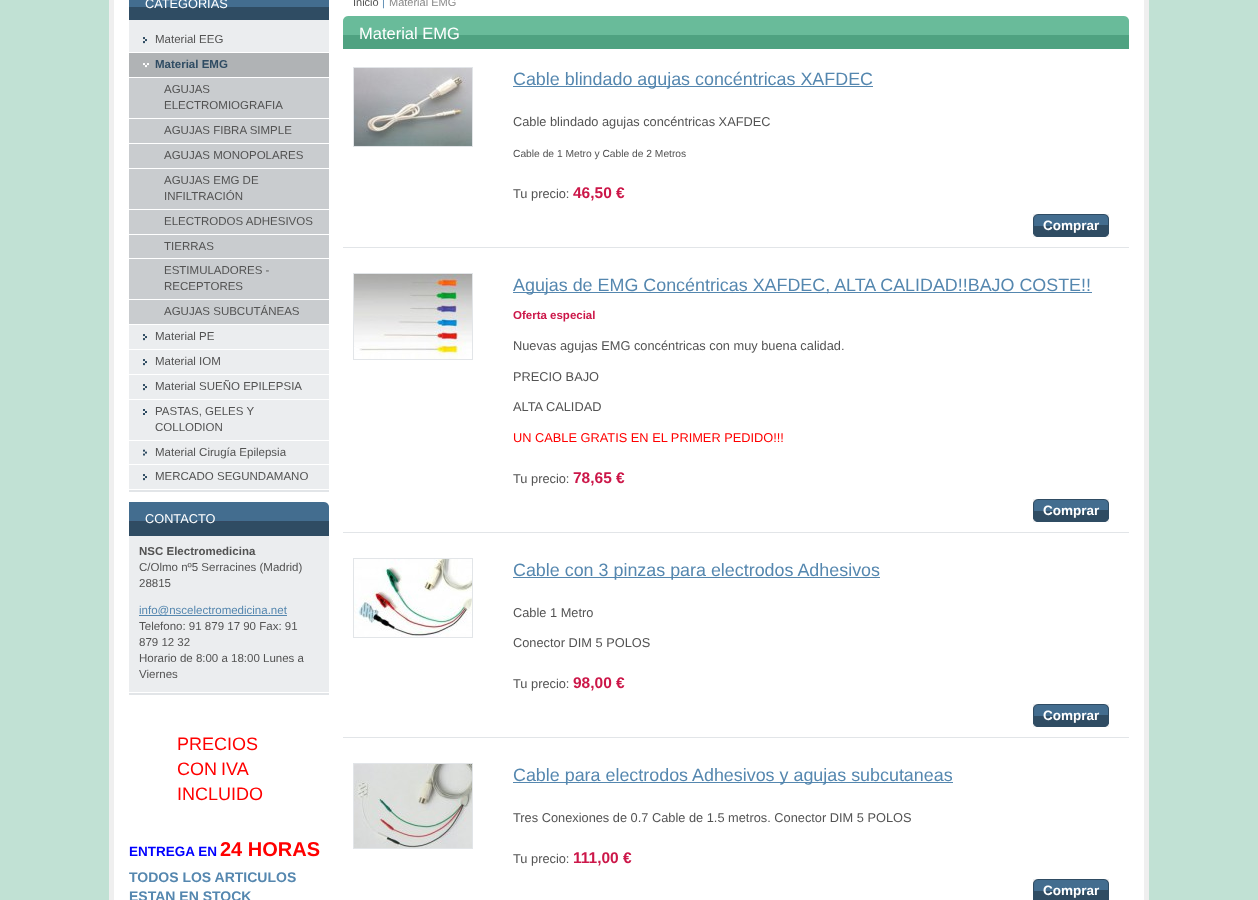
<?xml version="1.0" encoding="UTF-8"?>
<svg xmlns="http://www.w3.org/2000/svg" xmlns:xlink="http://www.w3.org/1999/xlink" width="1258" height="900">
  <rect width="100%" height="100%" fill="#c1e1d4" />
  <rect x="114" width="1030" height="900" fill="#ffffff" />
  <rect x="1144" width="5" height="900" fill="#efefef" />
  <rect x="109" width="5" height="900" fill="#efefef" />
  <rect x="129" y="490" width="200" height="2" fill="#e2e5e8" />
  <rect x="129" y="20" width="200" height="469" fill="#ebedef" />
  <rect x="129" y="7" width="200" height="13" fill="#2f4c63" />
  <rect x="129" width="200" height="7" fill="#436d8f" />
  <image x="143" y="37" width="4" height="7" xlink:href="image1.png" />
  <rect x="129" y="52" width="200" height="1" fill="#ffffff" />
  <rect x="129" y="53" width="200" height="24" fill="#b0b3b5" />
  <image x="143" y="63" width="6" height="5" xlink:href="image2.png" />
  <rect x="129" y="77" width="200" height="1" fill="#ffffff" />
  <rect x="129" y="78" width="200" height="246" fill="#c9cccf" />
  <rect x="129" y="118" width="200" height="1" fill="#ffffff" />
  <rect x="129" y="143" width="200" height="1" fill="#ffffff" />
  <rect x="129" y="168" width="200" height="1" fill="#ffffff" />
  <rect x="129" y="209" width="200" height="1" fill="#ffffff" />
  <rect x="129" y="234" width="200" height="1" fill="#ffffff" />
  <rect x="129" y="258" width="200" height="1" fill="#ffffff" />
  <rect x="129" y="299" width="200" height="1" fill="#ffffff" />
  <rect x="129" y="324" width="200" height="1" fill="#ffffff" />
  <image x="143" y="334" width="4" height="7" xlink:href="image1.png" />
  <rect x="129" y="349" width="200" height="1" fill="#ffffff" />
  <image x="143" y="359" width="4" height="7" xlink:href="image1.png" />
  <rect x="129" y="374" width="200" height="1" fill="#ffffff" />
  <image x="143" y="384" width="4" height="7" xlink:href="image1.png" />
  <rect x="129" y="399" width="200" height="1" fill="#ffffff" />
  <image x="143" y="409" width="4" height="6" xlink:href="image3.png" />
  <rect x="129" y="440" width="200" height="1" fill="#ffffff" />
  <image x="143" y="449" width="4" height="7" xlink:href="image4.png" />
  <rect x="129" y="464" width="200" height="1" fill="#ffffff" />
  <image x="143" y="474" width="4" height="7" xlink:href="image1.png" />
  <rect x="129" y="693" width="200" height="2" fill="#e2e5e8" />
  <rect x="129" y="536" width="200" height="156" fill="#ebedef" />
  <rect x="129" y="522" width="200" height="14" fill="#2f4c63" />
  <image x="129" y="502" width="200" height="20" xlink:href="image5.png" />
  <rect x="139" y="615" width="148" height="1" fill="#5587af" />
  <rect x="343" y="35" width="786" height="14" fill="#4fa281" />
  <image x="343" y="16" width="786" height="19" xlink:href="image6.png" />
  <image x="1124" y="16" width="5" height="5" xlink:href="image7.png" />
  <rect x="343" y="247" width="786" height="1" fill="#e2e5e8" />
  <rect x="353.5" y="67.5" width="119" height="79" fill="none" stroke="#e2e5e8" />
  <image x="354" y="68" width="118" height="78" xlink:href="image8.png" />
  <rect x="513" y="86" width="360" height="1" fill="#5587af" />
  <image x="1033" y="214" width="71" height="12" xlink:href="image9.png" />
  <image x="1104" y="214" width="5" height="11" xlink:href="image10.png" />
  <image x="1033" y="226" width="56" height="11" xlink:href="image11.png" />
  <image x="1089" y="225" width="20" height="12" xlink:href="image12.png" />
  <rect x="343" y="532" width="786" height="1" fill="#e2e5e8" />
  <rect x="353.5" y="273.5" width="119" height="86" fill="none" stroke="#e2e5e8" />
  <image x="354" y="274" width="118" height="85" xlink:href="image13.png" />
  <rect x="513" y="292" width="579" height="1" fill="#5587af" />
  <image x="1033" y="499" width="71" height="12" xlink:href="image9.png" />
  <image x="1104" y="499" width="5" height="11" xlink:href="image10.png" />
  <image x="1033" y="511" width="56" height="11" xlink:href="image11.png" />
  <image x="1089" y="510" width="20" height="12" xlink:href="image12.png" />
  <rect x="343" y="737" width="786" height="1" fill="#e2e5e8" />
  <rect x="353.5" y="558.5" width="119" height="79" fill="none" stroke="#e2e5e8" />
  <image x="354" y="559" width="118" height="78" xlink:href="image14.png" />
  <rect x="513" y="577" width="367" height="1" fill="#5587af" />
  <image x="1033" y="704" width="71" height="12" xlink:href="image9.png" />
  <image x="1104" y="704" width="5" height="11" xlink:href="image10.png" />
  <image x="1033" y="716" width="56" height="11" xlink:href="image11.png" />
  <image x="1089" y="715" width="20" height="12" xlink:href="image12.png" />
  <rect x="353.5" y="763.5" width="119" height="85" fill="none" stroke="#e2e5e8" />
  <image x="354" y="764" width="118" height="84" xlink:href="image15.png" />
  <rect x="513" y="782" width="440" height="1" fill="#5587af" />
  <image x="1033" y="879" width="71" height="12" xlink:href="image9.png" />
  <image x="1104" y="879" width="5" height="11" xlink:href="image10.png" />
  <rect x="1033" y="891" width="56" height="9" fill="#2f4c63" />
  <rect x="1089" y="890" width="20" height="10" fill="#2f4c63" />
  <text x="145" y="8" style="font-family: Liberation Sans; font-size: 12.75px; fill: #ffffff">CATEGORÍAS</text>
  <text x="155" y="43" style="font-family: Liberation Sans; font-size: 11.5px; fill: #535353">Material EEG</text>
  <text x="155" y="68" style="font-family: Liberation Sans; font-size: 11.5px; font-weight: bold; fill: #2f4c63">Material EMG</text>
  <text x="164" y="93" style="font-family: Liberation Sans; font-size: 11.5px; fill: #535353">AGUJAS</text>
  <text x="164" y="109" style="font-family: Liberation Sans; font-size: 11.5px; fill: #535353">ELECTROMIOGRAFIA</text>
  <text x="164" y="134" style="font-family: Liberation Sans; font-size: 11.5px; fill: #535353">AGUJAS FIBRA SIMPLE</text>
  <text x="164" y="159" style="font-family: Liberation Sans; font-size: 11.5px; fill: #535353">AGUJAS MONOPOLARES</text>
  <text x="164" y="184" style="font-family: Liberation Sans; font-size: 11.5px; fill: #535353">AGUJAS EMG DE</text>
  <text x="164" y="200" style="font-family: Liberation Sans; font-size: 11.5px; fill: #535353">INFILTRACIÓN</text>
  <text x="164" y="225" style="font-family: Liberation Sans; font-size: 11.5px; fill: #535353">ELECTRODOS ADHESIVOS</text>
  <text x="164" y="250" style="font-family: Liberation Sans; font-size: 11.5px; fill: #535353">TIERRAS</text>
  <text x="164" y="274" style="font-family: Liberation Sans; font-size: 11.5px; fill: #535353">ESTIMULADORES -</text>
  <text x="164" y="290" style="font-family: Liberation Sans; font-size: 11.5px; fill: #535353">RECEPTORES</text>
  <text x="164" y="315" style="font-family: Liberation Sans; font-size: 11.5px; fill: #535353">AGUJAS SUBCUTÁNEAS</text>
  <text x="155" y="340" style="font-family: Liberation Sans; font-size: 11.5px; fill: #535353">Material PE</text>
  <text x="155" y="365" style="font-family: Liberation Sans; font-size: 11.5px; fill: #535353">Material IOM</text>
  <text x="155" y="390" style="font-family: Liberation Sans; font-size: 11.5px; fill: #535353">Material SUEÑO EPILEPSIA</text>
  <text x="155" y="415" style="font-family: Liberation Sans; font-size: 11.5px; fill: #535353">PASTAS, GELES Y</text>
  <text x="155" y="431" style="font-family: Liberation Sans; font-size: 11.5px; fill: #535353">COLLODION</text>
  <text x="155" y="456" style="font-family: Liberation Sans; font-size: 11.5px; fill: #535353">Material Cirugía Epilepsia</text>
  <text x="155" y="480" style="font-family: Liberation Sans; font-size: 11.5px; fill: #535353">MERCADO SEGUNDAMANO</text>
  <text x="145" y="523" style="font-family: Liberation Sans; font-size: 12.75px; fill: #ffffff">CONTACTO</text>
  <text x="139" y="555" style="font-family: Liberation Sans; font-size: 11.5px; font-weight: bold; fill: #535353">NSC Electromedicina</text>
  <text x="139" y="571" style="font-family: Liberation Sans; font-size: 11.5px; fill: #535353">C/Olmo nº5 Serracines (Madrid)</text>
  <text x="139" y="587" style="font-family: Liberation Sans; font-size: 11.5px; fill: #535353">28815</text>
  <text x="139" y="614" style="font-family: Liberation Sans; font-size: 11.5px; fill: #5587af">info@nscelectromedicina.net</text>
  <text x="139" y="630" style="font-family: Liberation Sans; font-size: 11.5px; fill: #535353">Telefono: 91 879 17 90 Fax: 91</text>
  <text x="139" y="646" style="font-family: Liberation Sans; font-size: 11.5px; fill: #535353">879 12 32</text>
  <text x="139" y="662" style="font-family: Liberation Sans; font-size: 11.5px; fill: #535353">Horario de 8:00 a 18:00 Lunes a</text>
  <text x="139" y="678" style="font-family: Liberation Sans; font-size: 11.5px; fill: #535353">Viernes</text>
  <text x="177" y="750" style="font-family: Liberation Sans; font-size: 18px; fill: #ff0000">PRECIOS</text>
  <text x="177" y="775" word-spacing="-1" style="font-family: Liberation Sans; font-size: 18px; fill: #ff0000">CON IVA</text>
  <text x="177" y="800" style="font-family: Liberation Sans; font-size: 18px; fill: #ff0000">INCLUIDO</text>
  <text x="129" y="856" style="font-family: Liberation Sans; font-size: 13.5px; font-weight: bold; fill: #0000ff">ENTREGA EN</text>
  <text x="220" y="856" style="font-family: Liberation Sans; font-size: 20px; font-weight: bold; fill: #ff0000">24 HORAS</text>
  <text x="129" y="882" style="font-family: Liberation Sans; font-size: 14px; font-weight: bold; fill: #5587af">TODOS LOS ARTICULOS</text>
  <text x="129" y="901" style="font-family: Liberation Sans; font-size: 14px; font-weight: bold; fill: #5587af">ESTAN EN STOCK</text>
  <text x="353" y="6" style="font-family: Liberation Sans; font-size: 11px; fill: #535353">Inicio</text>
  <text x="382" y="6" style="font-family: Liberation Sans; font-size: 11px; fill: #5587af">|</text>
  <text x="389" y="6" style="font-family: Liberation Sans; font-size: 11px; fill: #878787">Material EMG</text>
  <text x="359" y="39" style="font-family: Liberation Sans; font-size: 16.5px; fill: #ffffff">Material EMG</text>
  <text x="513" y="85" style="font-family: Liberation Sans; font-size: 17.9px; fill: #5587af">Cable blindado agujas concéntricas XAFDEC</text>
  <text x="513" y="126" style="font-family: Liberation Sans; font-size: 12.8px; fill: #535353">Cable blindado agujas concéntricas XAFDEC</text>
  <text x="513" y="157" style="font-family: Liberation Sans; font-size: 10.25px; fill: #535353">Cable de 1 Metro y Cable de 2 Metros</text>
  <text x="513" y="198" style="font-family: Liberation Sans; font-size: 12.8px; fill: #535353">Tu precio:</text>
  <text x="573" y="198" style="font-family: Liberation Sans; font-size: 15.5px; font-weight: bold; fill: #cc1749">46,50 €</text>
  <text x="1043" y="230" style="font-family: Liberation Sans; font-size: 13.5px; font-weight: bold; fill: #ffffff">Comprar</text>
  <text x="513" y="291" style="font-family: Liberation Sans; font-size: 17.9px; fill: #5587af">Agujas de EMG Concéntricas XAFDEC, ALTA CALIDAD!!BAJO COSTE!!</text>
  <text x="513" y="319" style="font-family: Liberation Sans; font-size: 11.5px; font-weight: bold; fill: #cc1749">Oferta especial</text>
  <text x="513" y="350" style="font-family: Liberation Sans; font-size: 12.8px; fill: #535353">Nuevas agujas EMG concéntricas con muy buena calidad.</text>
  <text x="513" y="381" style="font-family: Liberation Sans; font-size: 12.8px; fill: #535353">PRECIO BAJO</text>
  <text x="513" y="411" style="font-family: Liberation Sans; font-size: 12.8px; fill: #535353">ALTA CALIDAD</text>
  <text x="513" y="442" style="font-family: Liberation Sans; font-size: 12.8px; fill: #ff0000">UN CABLE GRATIS EN EL PRIMER PEDIDO!!!</text>
  <text x="513" y="483" style="font-family: Liberation Sans; font-size: 12.8px; fill: #535353">Tu precio:</text>
  <text x="573" y="483" style="font-family: Liberation Sans; font-size: 15.5px; font-weight: bold; fill: #cc1749">78,65 €</text>
  <text x="1043" y="515" style="font-family: Liberation Sans; font-size: 13.5px; font-weight: bold; fill: #ffffff">Comprar</text>
  <text x="513" y="576" style="font-family: Liberation Sans; font-size: 17.9px; fill: #5587af">Cable con 3 pinzas para electrodos Adhesivos</text>
  <text x="513" y="617" style="font-family: Liberation Sans; font-size: 12.8px; fill: #535353">Cable 1 Metro</text>
  <text x="513" y="647" style="font-family: Liberation Sans; font-size: 12.8px; fill: #535353">Conector DIM 5 POLOS</text>
  <text x="513" y="688" style="font-family: Liberation Sans; font-size: 12.8px; fill: #535353">Tu precio:</text>
  <text x="573" y="688" style="font-family: Liberation Sans; font-size: 15.5px; font-weight: bold; fill: #cc1749">98,00 €</text>
  <text x="1043" y="720" style="font-family: Liberation Sans; font-size: 13.5px; font-weight: bold; fill: #ffffff">Comprar</text>
  <text x="513" y="781" style="font-family: Liberation Sans; font-size: 17.9px; fill: #5587af">Cable para electrodos Adhesivos y agujas subcutaneas</text>
  <text x="513" y="822" style="font-family: Liberation Sans; font-size: 12.8px; fill: #535353">Tres Conexiones de 0.7 Cable de 1.5 metros. Conector DIM 5 POLOS</text>
  <text x="513" y="863" style="font-family: Liberation Sans; font-size: 12.8px; fill: #535353">Tu precio:</text>
  <text x="573" y="863" style="font-family: Liberation Sans; font-size: 15.5px; font-weight: bold; fill: #cc1749">111,00 €</text>
  <text x="1043" y="895" style="font-family: Liberation Sans; font-size: 13.5px; font-weight: bold; fill: #ffffff">Comprar</text>
</svg>
